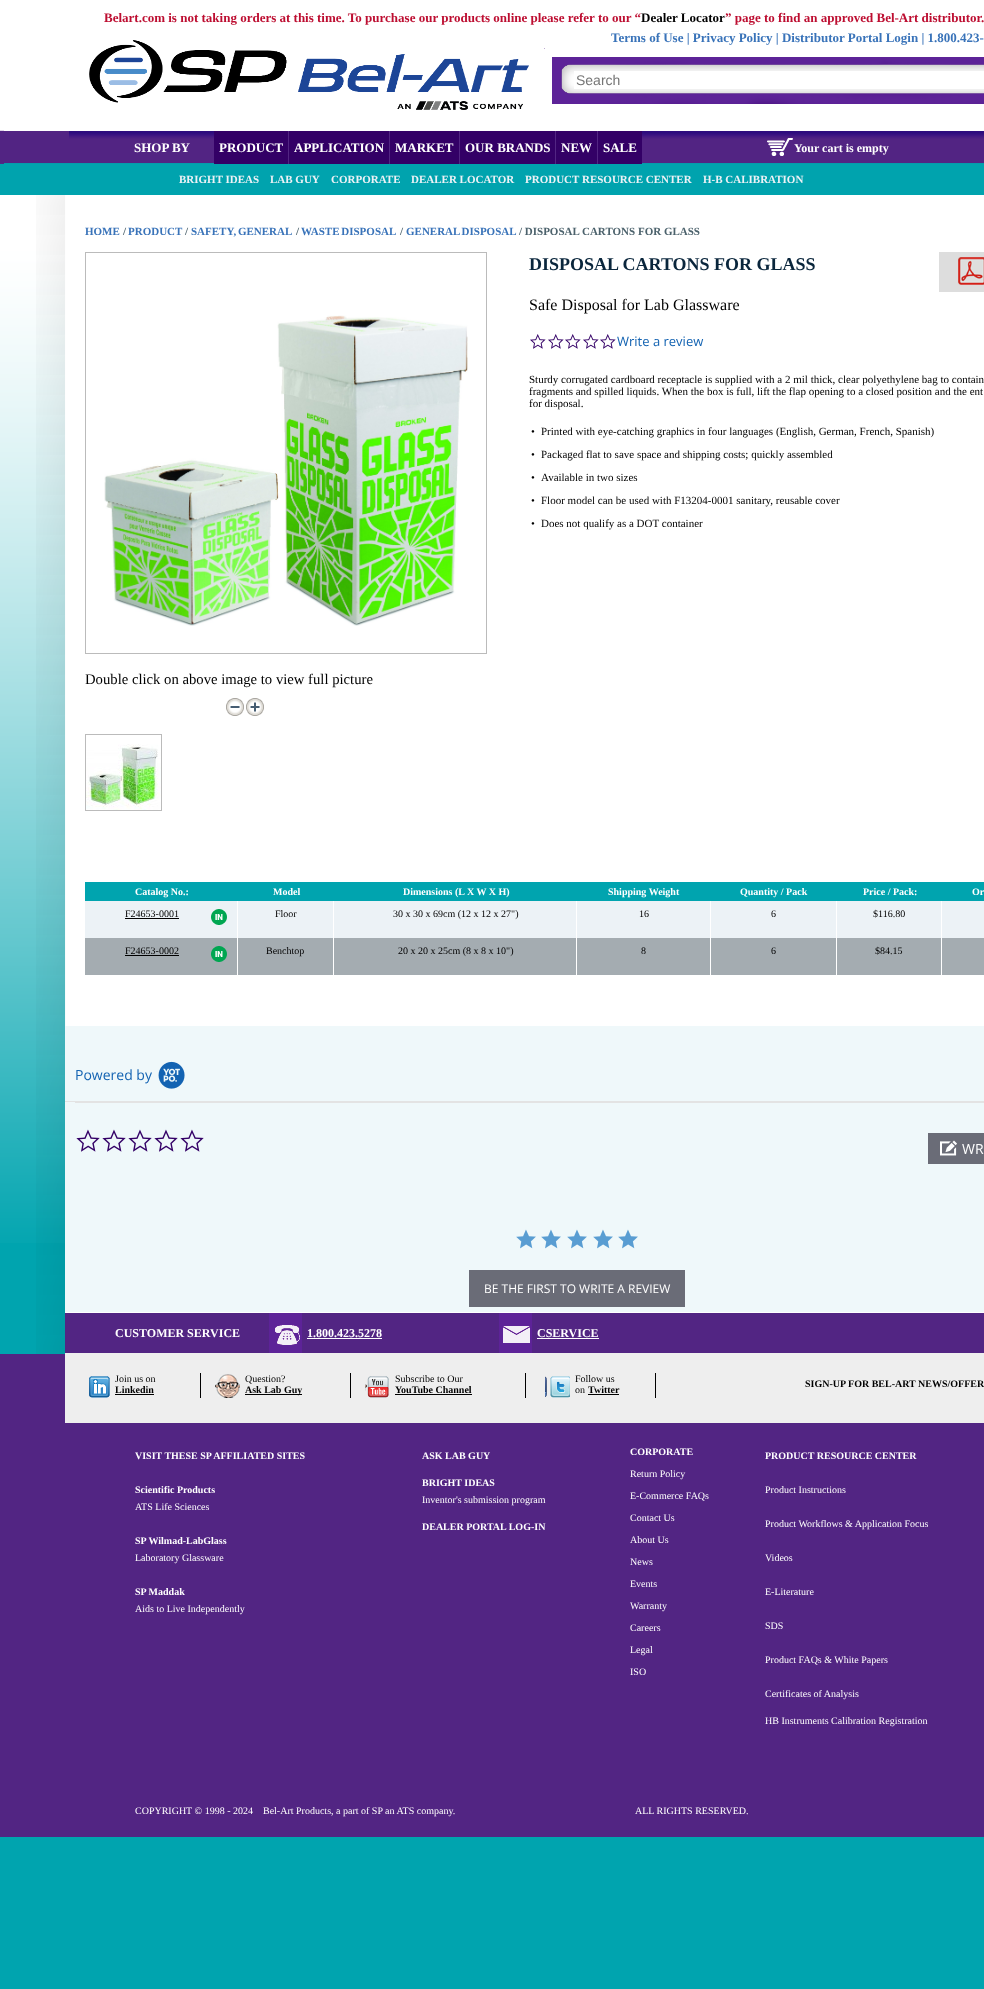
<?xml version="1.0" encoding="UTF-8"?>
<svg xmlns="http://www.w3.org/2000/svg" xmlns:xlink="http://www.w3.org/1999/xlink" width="984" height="1989">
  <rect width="100%" height="100%" fill="#00a4af" />
  <image x="0" y="0" width="984" height="1243" xlink:href="image1.png" />
  <image x="0" y="130" width="4" height="65" xlink:href="image2.png" />
  <image x="544" y="48" width="440" height="56" xlink:href="image3.png" />
  <image x="89" y="40" width="440" height="70" xlink:href="image4.png" />
  <rect x="574" y="71" width="410" height="18" fill="#ffffff" />
  <image x="4" y="131" width="980" height="64" xlink:href="image5.png" />
  <rect x="214" y="131" width="74" height="33" fill="#330066" />
  <rect x="288" y="131" width="1" height="33" fill="#522583" />
  <rect x="289" y="131" width="100" height="33" fill="#330066" />
  <rect x="389" y="131" width="1" height="33" fill="#522583" />
  <rect x="390" y="131" width="69" height="33" fill="#330066" />
  <rect x="459" y="131" width="1" height="33" fill="#522583" />
  <rect x="460" y="131" width="95" height="33" fill="#330066" />
  <rect x="555" y="131" width="1" height="33" fill="#522583" />
  <rect x="556" y="131" width="41" height="33" fill="#330066" />
  <rect x="597" y="131" width="1" height="33" fill="#522583" />
  <rect x="598" y="131" width="44" height="33" fill="#330066" />
  <image x="767" y="138" width="26" height="18" xlink:href="image6.png" />
  <image x="36" y="195" width="948" height="1159" xlink:href="image7.png" />
  <rect x="939" y="252" width="45" height="40" fill="#dddddd" />
  <image x="958" y="257" width="26" height="28" xlink:href="image8.png" />
  <image x="530" y="334" width="16" height="15" xlink:href="image9.png" />
  <image x="548" y="334" width="16" height="15" xlink:href="image9.png" />
  <image x="565" y="334" width="16" height="15" xlink:href="image9.png" />
  <image x="583" y="334" width="16" height="15" xlink:href="image9.png" />
  <image x="600" y="334" width="16" height="15" xlink:href="image9.png" />
  <rect x="85.5" y="252.5" width="401" height="401" fill="none" stroke="#bbbbbb" />
  <image x="104" y="315" width="364" height="311" xlink:href="image10.png" />
  <image x="226" y="698" width="18" height="18" xlink:href="image11.png" />
  <image x="246" y="698" width="18" height="18" xlink:href="image12.png" />
  <rect x="85.5" y="734.5" width="76" height="76" fill="none" stroke="#bbbbbb" />
  <image x="86" y="744" width="75" height="66" xlink:href="image13.png" />
  <rect x="85" y="882" width="899" height="19" fill="#00a4af" />
  <rect x="85" y="901" width="152" height="37" fill="#ecf2f6" />
  <rect x="125" y="918" width="54" height="1" fill="#000000" />
  <image x="211" y="909" width="16" height="16" xlink:href="image14.png" />
  <rect x="238" y="901" width="95" height="37" fill="#ecf2f6" />
  <rect x="334" y="901" width="242" height="37" fill="#ecf2f6" />
  <rect x="577" y="901" width="133" height="37" fill="#ecf2f6" />
  <rect x="711" y="901" width="125" height="37" fill="#ecf2f6" />
  <rect x="837" y="901" width="104" height="37" fill="#ecf2f6" />
  <rect x="942" y="901" width="42" height="37" fill="#ecf2f6" />
  <rect x="85" y="938" width="152" height="37" fill="#a4acb1" />
  <rect x="125" y="955" width="54" height="1" fill="#000000" />
  <image x="211" y="946" width="16" height="16" xlink:href="image15.png" />
  <rect x="238" y="938" width="95" height="37" fill="#a4acb1" />
  <rect x="334" y="938" width="242" height="37" fill="#a4acb1" />
  <rect x="577" y="938" width="133" height="37" fill="#a4acb1" />
  <rect x="711" y="938" width="125" height="37" fill="#a4acb1" />
  <rect x="837" y="938" width="104" height="37" fill="#a4acb1" />
  <rect x="942" y="938" width="42" height="37" fill="#a4acb1" />
  <rect x="65" y="1026" width="919" height="286" fill="#eff8fa" />
  <rect x="65" y="1101" width="919" height="1" fill="#e3e3e3" />
  <image x="158" y="1061" width="27" height="28" xlink:href="image16.png" />
  <rect x="75" y="1102" width="909" height="1" fill="#e3e3e3" />
  <image x="76" y="1129" width="24" height="23" xlink:href="image17.png" />
  <image x="102" y="1129" width="24" height="23" xlink:href="image17.png" />
  <image x="128" y="1129" width="24" height="23" xlink:href="image17.png" />
  <image x="154" y="1129" width="24" height="23" xlink:href="image17.png" />
  <image x="180" y="1129" width="24" height="23" xlink:href="image17.png" />
  <rect x="928" y="1133" width="56" height="31" fill="#6a6c77" />
  <image x="940" y="1140" width="17" height="16" xlink:href="image18.png" />
  <image x="516" y="1229" width="20" height="20" xlink:href="image19.png" />
  <image x="541" y="1229" width="20" height="20" xlink:href="image19.png" />
  <image x="567" y="1229" width="20" height="20" xlink:href="image19.png" />
  <image x="593" y="1229" width="20" height="20" xlink:href="image19.png" />
  <image x="618" y="1229" width="20" height="20" xlink:href="image19.png" />
  <rect x="469" y="1270" width="216" height="37" fill="#6a6c77" />
  <rect x="65" y="1313" width="919" height="40" fill="#522583" />
  <image x="269" y="1313" width="33" height="40" xlink:href="image20.png" />
  <rect x="307" y="1338" width="75" height="1" fill="#ffffff" />
  <image x="499" y="1313" width="33" height="40" xlink:href="image21.png" />
  <rect x="537" y="1338" width="62" height="1" fill="#ffffff" />
  <rect y="1354" width="984" height="483" fill="#522583" />
  <rect x="65" y="1353" width="919" height="70" fill="#eeeeee" />
  <rect x="200" y="1373" width="1" height="25" fill="#000000" />
  <image x="89" y="1376" width="21" height="22" xlink:href="image22.png" />
  <rect x="115" y="1394" width="39" height="1" fill="#000000" />
  <rect x="350" y="1373" width="1" height="25" fill="#000000" />
  <image x="215" y="1374" width="25" height="24" xlink:href="image23.png" />
  <rect x="245" y="1394" width="57" height="1" fill="#000000" />
  <rect x="525" y="1373" width="1" height="25" fill="#000000" />
  <image x="365" y="1376" width="24" height="22" xlink:href="image24.png" />
  <rect x="395" y="1394" width="77" height="1" fill="#000000" />
  <rect x="655" y="1373" width="1" height="25" fill="#000000" />
  <image x="545" y="1376" width="25" height="22" xlink:href="image25.png" />
  <rect x="588" y="1394" width="31" height="1" fill="#000000" />
  <text x="104" y="22" style="font-family: Liberation Serif; font-size: 13px; font-weight: bold; fill: #bd0e31">Belart.com is not taking orders at this time. To purchase our products online please refer to our “</text>
  <text x="641" y="22" style="font-family: Liberation Serif; font-size: 13px; font-weight: bold; fill: #000000">Dealer Locator</text>
  <text x="725" y="22" style="font-family: Liberation Serif; font-size: 13px; font-weight: bold; fill: #bd0e31">” page to find an approved Bel-Art distributor.</text>
  <text x="611" y="42" style="font-family: Liberation Serif; font-size: 13px; font-weight: bold; fill: #3973b9">Terms of Use | Privacy Policy | Distributor Portal Login | 1.800.423-</text>
  <text x="576" y="85" style="font-family: Liberation Sans; font-size: 14px; fill: #757575">Search</text>
  <text x="134" y="152" style="font-family: Liberation Serif; font-size: 13px; font-weight: bold; fill: #ffffff">SHOP BY</text>
  <text x="219" y="152" style="font-family: Liberation Serif; font-size: 13px; font-weight: bold; fill: #ffffff">PRODUCT</text>
  <text x="294" y="152" style="font-family: Liberation Serif; font-size: 13px; font-weight: bold; fill: #ffffff">APPLICATION</text>
  <text x="395" y="152" style="font-family: Liberation Serif; font-size: 13px; font-weight: bold; fill: #ffffff">MARKET</text>
  <text x="465" y="152" style="font-family: Liberation Serif; font-size: 13px; font-weight: bold; fill: #ffffff">OUR BRANDS</text>
  <text x="561" y="152" style="font-family: Liberation Serif; font-size: 13px; font-weight: bold; fill: #ffffff">NEW</text>
  <text x="603" y="152" style="font-family: Liberation Serif; font-size: 13px; font-weight: bold; fill: #ffffff">SALE</text>
  <text x="794" y="152" style="font-family: Liberation Serif; font-size: 12px; font-weight: bold; fill: #ffffff">Your cart is empty</text>
  <text x="179" y="183" style="font-family: Liberation Serif; font-size: 11px; font-weight: bold; fill: #ecf2f6">BRIGHT IDEAS</text>
  <text x="270" y="183" style="font-family: Liberation Serif; font-size: 11px; font-weight: bold; fill: #ecf2f6">LAB GUY</text>
  <text x="331" y="183" style="font-family: Liberation Serif; font-size: 11px; font-weight: bold; fill: #ecf2f6">CORPORATE</text>
  <text x="411" y="183" style="font-family: Liberation Serif; font-size: 11px; font-weight: bold; fill: #ecf2f6">DEALER LOCATOR</text>
  <text x="525" y="183" style="font-family: Liberation Serif; font-size: 11px; font-weight: bold; fill: #ecf2f6">PRODUCT RESOURCE CENTER</text>
  <text x="703" y="183" style="font-family: Liberation Serif; font-size: 11px; font-weight: bold; fill: #ecf2f6">H-B CALIBRATION</text>
  <text x="85" y="235" style="font-family: Liberation Serif; font-size: 11px; font-weight: bold; fill: #3973b9">HOME</text>
  <text x="123" y="235" style="font-family: Liberation Serif; font-size: 11px; font-weight: bold; fill: #4c626c">/</text>
  <text x="128" y="235" style="font-family: Liberation Serif; font-size: 11px; font-weight: bold; fill: #3973b9">PRODUCT</text>
  <text x="185" y="235" style="font-family: Liberation Serif; font-size: 11px; font-weight: bold; fill: #4c626c">/</text>
  <text x="191" y="235" word-spacing="-1" style="font-family: Liberation Serif; font-size: 11px; font-weight: bold; fill: #3973b9">SAFETY, GENERAL</text>
  <text x="296" y="235" style="font-family: Liberation Serif; font-size: 11px; font-weight: bold; fill: #4c626c">/</text>
  <text x="301" y="235" word-spacing="-1" style="font-family: Liberation Serif; font-size: 11px; font-weight: bold; fill: #3973b9">WASTE DISPOSAL</text>
  <text x="400" y="235" style="font-family: Liberation Serif; font-size: 11px; font-weight: bold; fill: #4c626c">/</text>
  <text x="406" y="235" word-spacing="-1" style="font-family: Liberation Serif; font-size: 11px; font-weight: bold; fill: #3973b9">GENERAL DISPOSAL</text>
  <text x="519" y="235" style="font-family: Liberation Serif; font-size: 11px; font-weight: bold; fill: #4c626c">/ DISPOSAL CARTONS FOR GLASS</text>
  <text x="529" y="270" style="font-family: Liberation Serif; font-size: 18px; font-weight: bold; fill: #0a263c">DISPOSAL CARTONS FOR GLASS</text>
  <text x="529" y="310" style="font-family: Liberation Serif; font-size: 16px; fill: #000000">Safe Disposal for Lab Glassware</text>
  <text x="617" y="346" style="font-family: Open Sans; font-size: 13px; fill: #1363b2">Write a review</text>
  <text x="529" y="383" style="font-family: Liberation Serif; font-size: 11px; fill: #000000">Sturdy corrugated cardboard receptacle is supplied with a 2 mil thick, clear polyethylene bag to contain</text>
  <text x="529" y="395" style="font-family: Liberation Serif; font-size: 11px; fill: #000000">fragments and spilled liquids. When the box is full, lift the flap opening to a closed position and the ent</text>
  <text x="529" y="407" style="font-family: Liberation Serif; font-size: 11px; fill: #000000">for disposal.</text>
  <text x="531" y="435" style="font-family: Liberation Serif; font-size: 11px; fill: #000000">•</text>
  <text x="541" y="435" style="font-family: Liberation Serif; font-size: 11px; fill: #000000">Printed with eye-catching graphics in four languages (English, German, French, Spanish)</text>
  <text x="531" y="458" style="font-family: Liberation Serif; font-size: 11px; fill: #000000">•</text>
  <text x="541" y="458" style="font-family: Liberation Serif; font-size: 11px; fill: #000000">Packaged flat to save space and shipping costs; quickly assembled</text>
  <text x="531" y="481" style="font-family: Liberation Serif; font-size: 11px; fill: #000000">•</text>
  <text x="541" y="481" style="font-family: Liberation Serif; font-size: 11px; fill: #000000">Available in two sizes</text>
  <text x="531" y="504" style="font-family: Liberation Serif; font-size: 11px; fill: #000000">•</text>
  <text x="541" y="504" style="font-family: Liberation Serif; font-size: 11px; fill: #000000">Floor model can be used with F13204-0001 sanitary, reusable cover</text>
  <text x="531" y="527" style="font-family: Liberation Serif; font-size: 11px; fill: #000000">•</text>
  <text x="541" y="527" style="font-family: Liberation Serif; font-size: 11px; fill: #000000">Does not qualify as a DOT container</text>
  <text x="85" y="684" style="font-family: Liberation Serif; font-size: 14.7px; fill: #000000">Double click on above image to view full picture</text>
  <text x="135" y="895" style="font-family: Liberation Serif; font-size: 10px; font-weight: bold; fill: #ffffff">Catalog No.:</text>
  <text x="273" y="895" style="font-family: Liberation Serif; font-size: 10px; font-weight: bold; fill: #ffffff">Model</text>
  <text x="403" y="895" style="font-family: Liberation Serif; font-size: 10px; font-weight: bold; fill: #ffffff">Dimensions (L X W X H)</text>
  <text x="608" y="895" style="font-family: Liberation Serif; font-size: 10px; font-weight: bold; fill: #ffffff">Shipping Weight</text>
  <text x="740" y="895" style="font-family: Liberation Serif; font-size: 10px; font-weight: bold; fill: #ffffff">Quantity / Pack</text>
  <text x="863" y="895" style="font-family: Liberation Serif; font-size: 10px; font-weight: bold; fill: #ffffff">Price / Pack:</text>
  <text x="972" y="895" style="font-family: Liberation Serif; font-size: 10px; font-weight: bold; fill: #ffffff">Or</text>
  <text x="125" y="917" style="font-family: Liberation Serif; font-size: 10px; fill: #000000">F24653-0001</text>
  <text x="275" y="917" style="font-family: Liberation Serif; font-size: 10px; fill: #000000">Floor</text>
  <text x="393" y="917" style="font-family: Liberation Serif; font-size: 10px; fill: #000000">30 x 30 x 69cm (12 x 12 x 27")</text>
  <text x="639" y="917" style="font-family: Liberation Serif; font-size: 10px; fill: #000000">16</text>
  <text x="771" y="917" style="font-family: Liberation Serif; font-size: 10px; fill: #000000">6</text>
  <text x="873" y="917" style="font-family: Liberation Serif; font-size: 10px; fill: #000000">$116.80</text>
  <text x="125" y="954" style="font-family: Liberation Serif; font-size: 10px; fill: #000000">F24653-0002</text>
  <text x="266" y="954" style="font-family: Liberation Serif; font-size: 10px; fill: #000000">Benchtop</text>
  <text x="398" y="954" style="font-family: Liberation Serif; font-size: 10px; fill: #000000">20 x 20 x 25cm (8 x 8 x 10")</text>
  <text x="641" y="954" style="font-family: Liberation Serif; font-size: 10px; fill: #000000">8</text>
  <text x="771" y="954" style="font-family: Liberation Serif; font-size: 10px; fill: #000000">6</text>
  <text x="875" y="954" style="font-family: Liberation Serif; font-size: 10px; fill: #000000">$84.15</text>
  <text x="75" y="1080" style="font-family: Open Sans; font-size: 14px; fill: #1363b2">Powered by</text>
  <text x="962" y="1154" style="font-family: Open Sans; font-size: 14px; fill: #ffffff">WR</text>
  <text x="484" y="1293" style="font-family: Open Sans; font-size: 12px; fill: #ffffff">BE THE FIRST TO WRITE A REVIEW</text>
  <text x="115" y="1337" style="font-family: Liberation Serif; font-size: 12px; font-weight: bold; fill: #ffffff">CUSTOMER SERVICE</text>
  <text x="307" y="1337" style="font-family: Liberation Serif; font-size: 12px; font-weight: bold; fill: #ffffff">1.800.423.5278</text>
  <text x="537" y="1337" style="font-family: Liberation Serif; font-size: 12px; font-weight: bold; fill: #ffffff">CSERVICE</text>
  <text x="115" y="1382" style="font-family: Liberation Serif; font-size: 10px; fill: #000000">Join us on</text>
  <text x="115" y="1393" style="font-family: Liberation Serif; font-size: 10px; font-weight: bold; fill: #000000">Linkedin</text>
  <text x="245" y="1382" style="font-family: Liberation Serif; font-size: 10px; fill: #000000">Question?</text>
  <text x="245" y="1393" style="font-family: Liberation Serif; font-size: 10px; font-weight: bold; fill: #000000">Ask Lab Guy</text>
  <text x="395" y="1382" style="font-family: Liberation Serif; font-size: 10px; fill: #000000">Subscribe to Our</text>
  <text x="395" y="1393" style="font-family: Liberation Serif; font-size: 10px; font-weight: bold; fill: #000000">YouTube Channel</text>
  <text x="575" y="1382" style="font-family: Liberation Serif; font-size: 10px; fill: #000000">Follow us</text>
  <text x="575" y="1393" style="font-family: Liberation Serif; font-size: 10px; fill: #000000">on</text>
  <text x="588" y="1393" style="font-family: Liberation Serif; font-size: 10px; font-weight: bold; fill: #000000">Twitter</text>
  <text x="805" y="1387" style="font-family: Liberation Serif; font-size: 10px; font-weight: bold; fill: #000000">SIGN-UP FOR BEL-ART NEWS/OFFER</text>
  <text x="135" y="1459" style="font-family: Liberation Serif; font-size: 10px; font-weight: bold; fill: #ffffff">VISIT THESE SP AFFILIATED SITES</text>
  <text x="135" y="1493" style="font-family: Liberation Serif; font-size: 10px; font-weight: bold; fill: #ffffff">Scientific Products</text>
  <text x="135" y="1510" style="font-family: Liberation Serif; font-size: 10px; fill: #ffffff">ATS Life Sciences</text>
  <text x="135" y="1544" style="font-family: Liberation Serif; font-size: 10px; font-weight: bold; fill: #ffffff">SP Wilmad-LabGlass</text>
  <text x="135" y="1561" style="font-family: Liberation Serif; font-size: 10px; fill: #ffffff">Laboratory Glassware</text>
  <text x="135" y="1595" style="font-family: Liberation Serif; font-size: 10px; font-weight: bold; fill: #ffffff">SP Maddak</text>
  <text x="135" y="1612" style="font-family: Liberation Serif; font-size: 10px; fill: #ffffff">Aids to Live Independently</text>
  <text x="422" y="1459" style="font-family: Liberation Serif; font-size: 10px; font-weight: bold; fill: #ffffff">ASK LAB GUY</text>
  <text x="422" y="1486" style="font-family: Liberation Serif; font-size: 10px; font-weight: bold; fill: #ffffff">BRIGHT IDEAS</text>
  <text x="422" y="1503" style="font-family: Liberation Serif; font-size: 10px; fill: #ffffff">Inventor's submission program</text>
  <text x="422" y="1530" style="font-family: Liberation Serif; font-size: 10px; font-weight: bold; fill: #ffffff">DEALER PORTAL LOG-IN</text>
  <text x="630" y="1455" style="font-family: Liberation Serif; font-size: 10px; font-weight: bold; fill: #ffffff">CORPORATE</text>
  <text x="630" y="1477" style="font-family: Liberation Serif; font-size: 10px; fill: #ffffff">Return Policy</text>
  <text x="630" y="1499" style="font-family: Liberation Serif; font-size: 10px; fill: #ffffff">E-Commerce FAQs</text>
  <text x="630" y="1521" style="font-family: Liberation Serif; font-size: 10px; fill: #ffffff">Contact Us</text>
  <text x="630" y="1543" style="font-family: Liberation Serif; font-size: 10px; fill: #ffffff">About Us</text>
  <text x="630" y="1565" style="font-family: Liberation Serif; font-size: 10px; fill: #ffffff">News</text>
  <text x="630" y="1587" style="font-family: Liberation Serif; font-size: 10px; fill: #ffffff">Events</text>
  <text x="630" y="1609" style="font-family: Liberation Serif; font-size: 10px; fill: #ffffff">Warranty</text>
  <text x="630" y="1631" style="font-family: Liberation Serif; font-size: 10px; fill: #ffffff">Careers</text>
  <text x="630" y="1653" style="font-family: Liberation Serif; font-size: 10px; fill: #ffffff">Legal</text>
  <text x="630" y="1675" style="font-family: Liberation Serif; font-size: 10px; fill: #ffffff">ISO</text>
  <text x="765" y="1459" style="font-family: Liberation Serif; font-size: 10px; font-weight: bold; fill: #ffffff">PRODUCT RESOURCE CENTER</text>
  <text x="765" y="1493" style="font-family: Liberation Serif; font-size: 10px; fill: #ffffff">Product Instructions</text>
  <text x="765" y="1527" style="font-family: Liberation Serif; font-size: 10px; fill: #ffffff">Product Workflows &amp; Application Focus</text>
  <text x="765" y="1561" style="font-family: Liberation Serif; font-size: 10px; fill: #ffffff">Videos</text>
  <text x="765" y="1595" style="font-family: Liberation Serif; font-size: 10px; fill: #ffffff">E-Literature</text>
  <text x="765" y="1629" style="font-family: Liberation Serif; font-size: 10px; fill: #ffffff">SDS</text>
  <text x="765" y="1663" style="font-family: Liberation Serif; font-size: 10px; fill: #ffffff">Product FAQs &amp; White Papers</text>
  <text x="765" y="1697" style="font-family: Liberation Serif; font-size: 10px; fill: #ffffff">Certificates of Analysis</text>
  <text x="765" y="1724" style="font-family: Liberation Serif; font-size: 10px; fill: #ffffff">HB Instruments Calibration Registration</text>
  <text x="135" y="1814" style="font-family: Liberation Serif; font-size: 10px; fill: #ffffff" xml:space="preserve">COPYRIGHT © 1998 - 2024    Bel-Art Products, a part of SP an ATS company.</text>
  <text x="635" y="1814" style="font-family: Liberation Serif; font-size: 10px; fill: #ffffff">ALL RIGHTS RESERVED.</text>
</svg>
